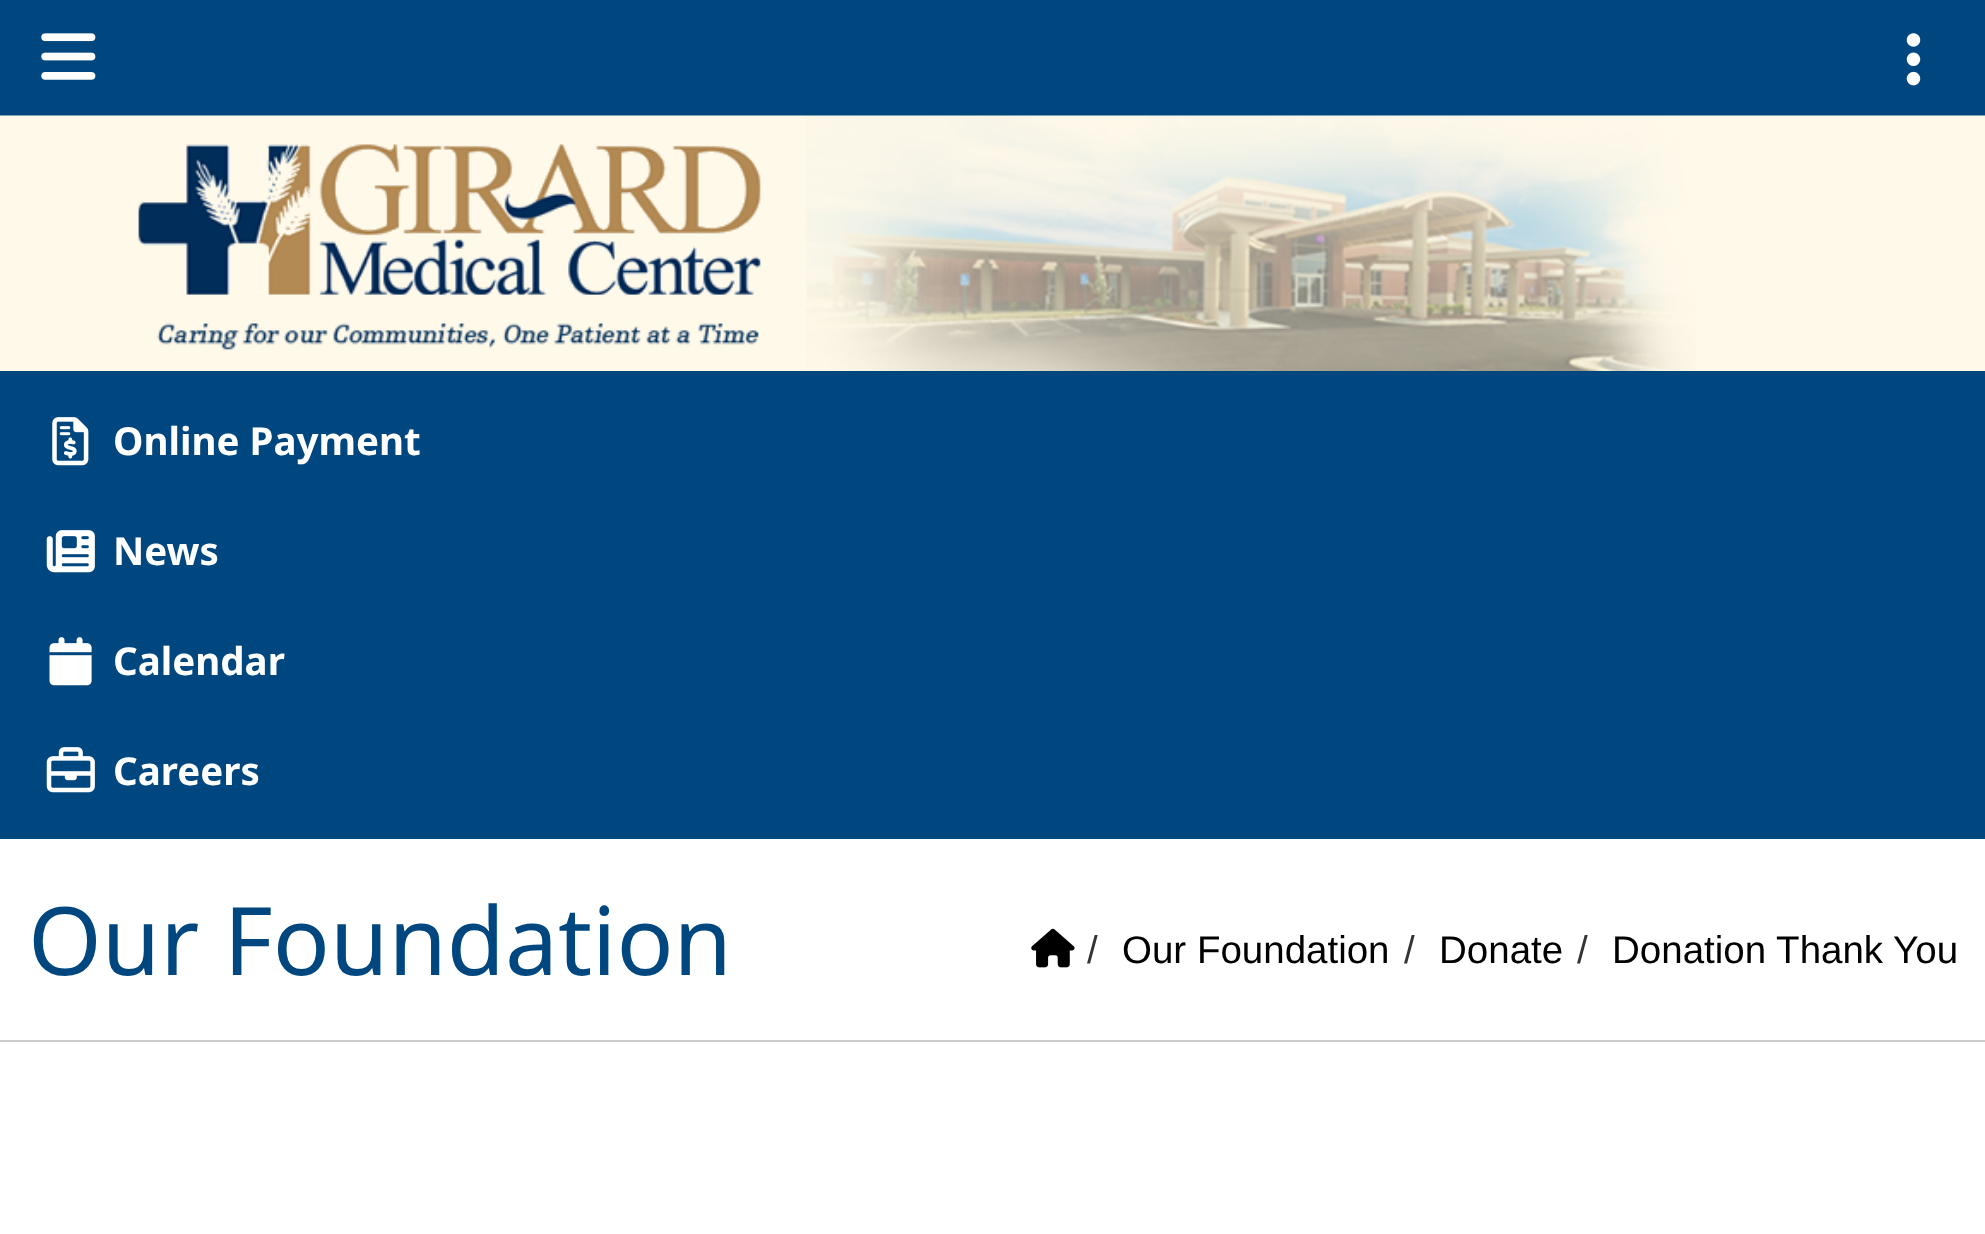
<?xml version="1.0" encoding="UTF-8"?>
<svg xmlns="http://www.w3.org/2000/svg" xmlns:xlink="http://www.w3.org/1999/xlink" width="1985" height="1234">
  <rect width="100%" height="100%" fill="#00477f" />
  <image x="41" y="33" width="55" height="47" xlink:href="image1.png" />
  <image x="1906" y="33" width="15" height="53" xlink:href="image2.png" />
  <image x="0" y="115" width="1985" height="256" xlink:href="image3.png" />
  <image x="52" y="417" width="37" height="49" xlink:href="image4.png" />
  <image x="46" y="530" width="49" height="43" xlink:href="image5.png" />
  <image x="49" y="637" width="43" height="49" xlink:href="image6.png" />
  <image x="46" y="747" width="49" height="46" xlink:href="image7.png" />
  <rect y="839" width="1985" height="201" fill="#ffffff" />
  <rect y="1040" width="1985" height="2" fill="#cccccc" />
  <image x="1031" y="928" width="44" height="40" xlink:href="image8.png" />
  <rect y="1042" width="1985" height="192" fill="#ffffff" />
  <text x="113" y="455" style="font-family: Noto Sans; font-size: 38.5px; font-weight: bold; fill: #ffffff">Online Payment</text>
  <text x="113" y="565" style="font-family: Noto Sans; font-size: 38.5px; font-weight: bold; fill: #ffffff">News</text>
  <text x="113" y="675" style="font-family: Noto Sans; font-size: 38.5px; font-weight: bold; fill: #ffffff">Calendar</text>
  <text x="113" y="785" style="font-family: Noto Sans; font-size: 38.5px; font-weight: bold; fill: #ffffff">Careers</text>
  <text x="28" y="975" style="font-family: Noto Sans; font-size: 94.5px; fill: #00477f">Our Foundation</text>
  <text x="1087" y="963" style="font-family: Liberation Sans; font-size: 38.5px; fill: #333333">/</text>
  <text x="1122" y="963" style="font-family: Liberation Sans; font-size: 38.5px; fill: #000000">Our Foundation</text>
  <text x="1404" y="963" style="font-family: Liberation Sans; font-size: 38.5px; fill: #333333">/</text>
  <text x="1439" y="963" style="font-family: Liberation Sans; font-size: 38.5px; fill: #000000">Donate</text>
  <text x="1577" y="963" style="font-family: Liberation Sans; font-size: 38.5px; fill: #333333">/</text>
  <text x="1612" y="963" style="font-family: Liberation Sans; font-size: 38.5px; fill: #000000">Donation Thank You</text>
</svg>
